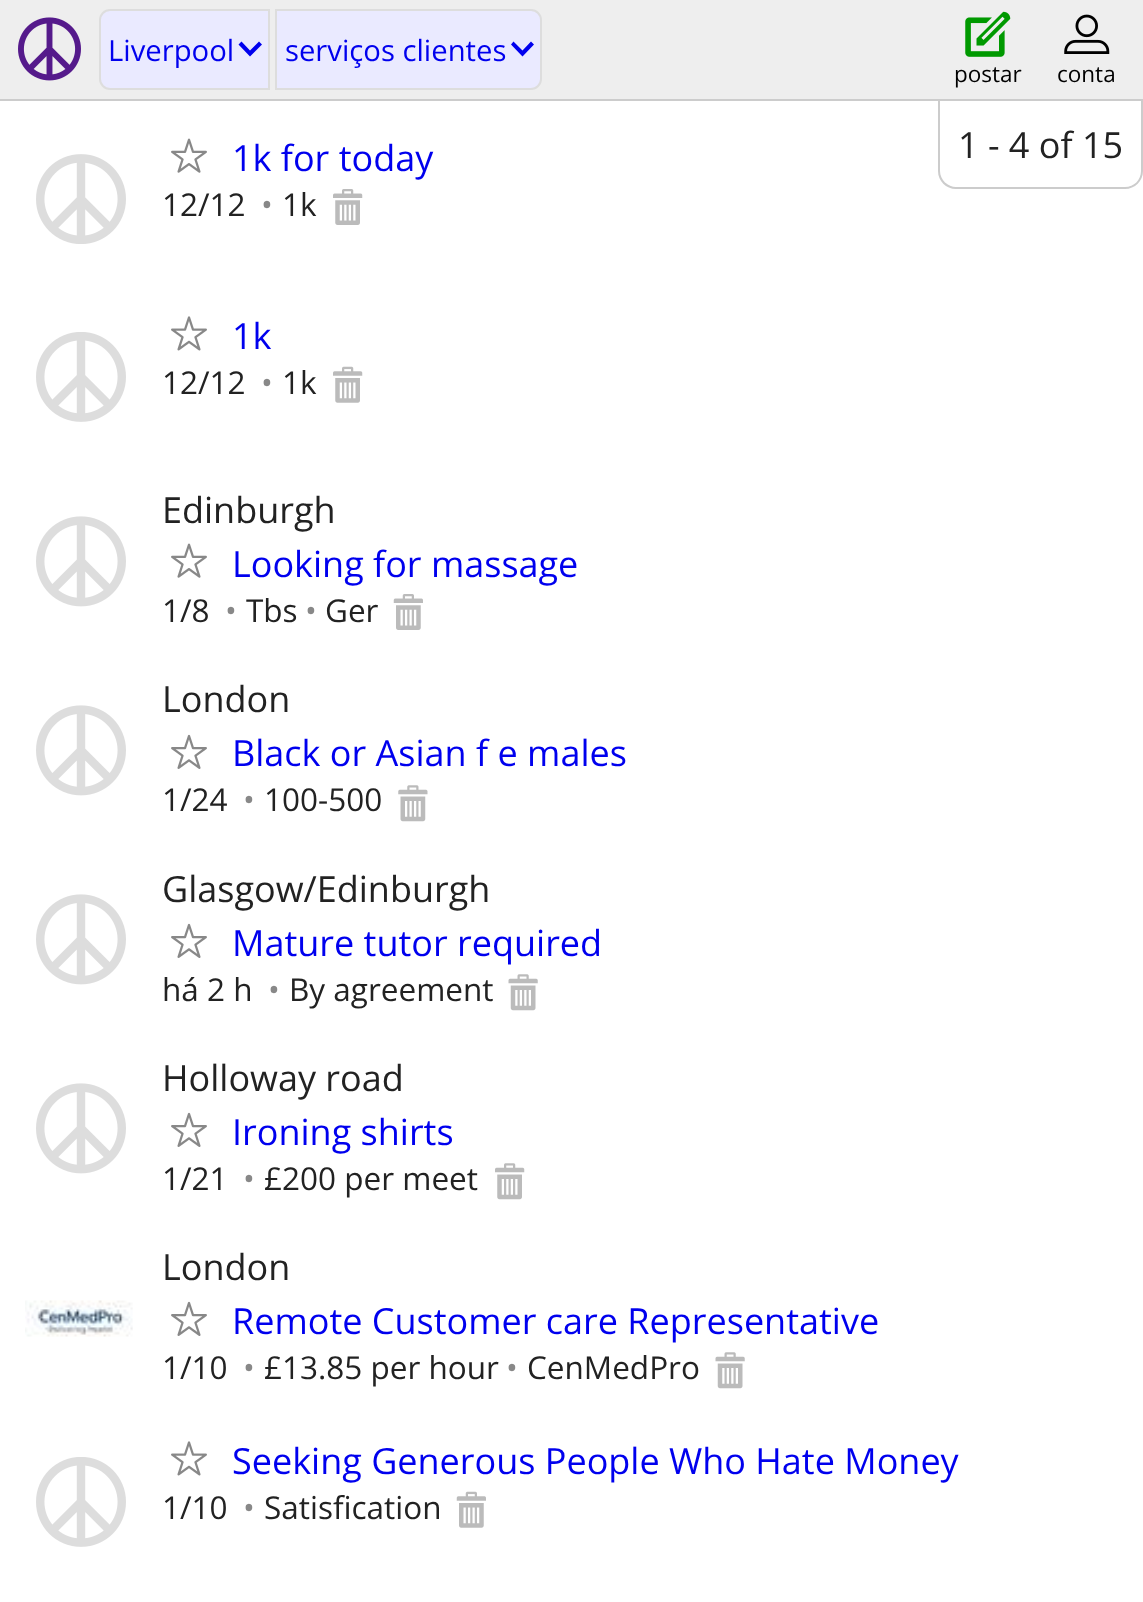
<?xml version="1.0" encoding="UTF-8"?>
<svg xmlns="http://www.w3.org/2000/svg" xmlns:xlink="http://www.w3.org/1999/xlink" width="1143" height="1602">
  <rect width="100%" height="100%" fill="#ffffff" />
  <rect width="1143" height="99" fill="#eeeeee" />
  <rect y="99" width="1143" height="2" fill="#cccccc" />
  <image x="18" y="17" width="63" height="64" xlink:href="image1.png" />
  <path d="M 110 10 h 159 v 79 h -159 c -5.5 0 -10 -4.5 -10 -10 v -59 c 0 -5.5 4.5 -10 10 -10 z" fill="#eaeaff" stroke="#dddddd" stroke-width="2" />
  <path d="M 262 44.5 l -3 -3 l -9 9 l -8.5 -9 l -3 3 l 11.5 12 z" fill="#0000ee" />
  <path d="M 276 10 h 255 c 5.5 0 10 4.5 10 10 v 59 c 0 5.5 -4.5 10 -10 10 h -255 z" fill="#eaeaff" stroke="#dddddd" stroke-width="2" />
  <path d="M 534 44.5 l -3 -3 l -8.5 9 l -9 -9 l -2.5 3 l 11.5 12 z" fill="#0000ee" />
  <image x="965" y="11" width="46" height="46" xlink:href="image2.png" />
  <image x="1064" y="14" width="46" height="40" xlink:href="image3.png" />
  <image x="36" y="154" width="90" height="90" xlink:href="image4.png" />
  <image x="171" y="138" width="36" height="35" xlink:href="image5.png" />
  <image x="333" y="189" width="30" height="36" xlink:href="image6.png" />
  <image x="36" y="332" width="90" height="90" xlink:href="image7.png" />
  <image x="171" y="316" width="36" height="35" xlink:href="image8.png" />
  <image x="333" y="366" width="30" height="37" xlink:href="image9.png" />
  <image x="36" y="516" width="90" height="91" xlink:href="image10.png" />
  <image x="171" y="543" width="36" height="35" xlink:href="image5.png" />
  <image x="393" y="594" width="30" height="36" xlink:href="image11.png" />
  <image x="36" y="705" width="90" height="91" xlink:href="image10.png" />
  <image x="171" y="734" width="36" height="35" xlink:href="image12.png" />
  <image x="398" y="785" width="30" height="37" xlink:href="image13.png" />
  <image x="36" y="894" width="90" height="91" xlink:href="image10.png" />
  <image x="171" y="923" width="36" height="35" xlink:href="image12.png" />
  <image x="508" y="974" width="30" height="37" xlink:href="image14.png" />
  <image x="36" y="1083" width="90" height="91" xlink:href="image10.png" />
  <image x="171" y="1112" width="36" height="35" xlink:href="image12.png" />
  <image x="495" y="1163" width="30" height="37" xlink:href="image15.png" />
  <image x="25" y="1300" width="108" height="37" xlink:href="image16.png" />
  <image x="171" y="1301" width="36" height="35" xlink:href="image12.png" />
  <image x="715" y="1352" width="30" height="37" xlink:href="image14.png" />
  <image x="36" y="1457" width="90" height="90" xlink:href="image7.png" />
  <image x="171" y="1441" width="36" height="35" xlink:href="image8.png" />
  <image x="456" y="1491" width="30" height="37" xlink:href="image17.png" />
  <path d="M 938 101 h 205 v 70 c 0 10 -8 18 -18 18 h -169 c -10 0 -18 -8 -18 -18 z m 2 0 h 201 v 70 c 0 9 -7 16 -16 16 h -169 c -8 0 -16 -7 -16 -16 z" fill="#cccccc" fill-rule="evenodd" />
  <text x="108" y="61" style="font-family: Open Sans; font-size: 29.25px; fill: #0000ee">Liverpool</text>
  <text x="285" y="61" style="font-family: Open Sans; font-size: 29.25px; fill: #0000ee">serviços clientes</text>
  <text x="954" y="82" style="font-family: Open Sans; font-size: 22.5px; fill: #000000">postar</text>
  <text x="1057" y="82" style="font-family: Open Sans; font-size: 22.5px; fill: #000000">conta</text>
  <text x="232" y="171" style="font-family: Open Sans; font-size: 36px; fill: #0000ee">1k for today</text>
  <text x="162" y="216" style="font-family: Open Sans; font-size: 31.5px; fill: #222222">12/12</text>
  <text x="261" y="216" style="font-family: Open Sans; font-size: 31.5px; fill: #888888">•</text>
  <text x="282" y="216" style="font-family: Open Sans; font-size: 31.5px; fill: #222222">1k</text>
  <text x="232" y="349" style="font-family: Open Sans; font-size: 36px; fill: #0000ee">1k</text>
  <text x="162" y="394" style="font-family: Open Sans; font-size: 31.5px; fill: #222222">12/12</text>
  <text x="261" y="394" style="font-family: Open Sans; font-size: 31.5px; fill: #888888">•</text>
  <text x="282" y="394" style="font-family: Open Sans; font-size: 31.5px; fill: #222222">1k</text>
  <text x="162" y="523" style="font-family: Open Sans; font-size: 36px; fill: #222222">Edinburgh</text>
  <text x="232" y="577" style="font-family: Open Sans; font-size: 36px; fill: #0000ee">Looking for massage</text>
  <text x="162" y="622" style="font-family: Open Sans; font-size: 31.5px; fill: #222222">1/8</text>
  <text x="225" y="622" style="font-family: Open Sans; font-size: 31.5px; fill: #888888">•</text>
  <text x="246" y="622" style="font-family: Open Sans; font-size: 31.5px; fill: #222222">Tbs</text>
  <text x="305" y="622" style="font-family: Open Sans; font-size: 31.5px; fill: #888888">•</text>
  <text x="325" y="622" style="font-family: Open Sans; font-size: 31.5px; fill: #222222">Ger</text>
  <text x="162" y="712" style="font-family: Open Sans; font-size: 36px; fill: #222222">London</text>
  <text x="232" y="766" style="font-family: Open Sans; font-size: 36px; fill: #0000ee">Black or Asian f e males</text>
  <text x="162" y="811" style="font-family: Open Sans; font-size: 31.5px; fill: #222222">1/24</text>
  <text x="243" y="811" style="font-family: Open Sans; font-size: 31.5px; fill: #888888">•</text>
  <text x="264" y="811" style="font-family: Open Sans; font-size: 31.5px; fill: #222222">100-500</text>
  <text x="162" y="902" style="font-family: Open Sans; font-size: 36px; fill: #222222">Glasgow/Edinburgh</text>
  <text x="232" y="956" style="font-family: Open Sans; font-size: 36px; fill: #0000ee">Mature tutor required</text>
  <text x="162" y="1001" style="font-family: Open Sans; font-size: 31.5px; fill: #222222">há 2 h</text>
  <text x="268" y="1001" style="font-family: Open Sans; font-size: 31.5px; fill: #888888">•</text>
  <text x="289" y="1001" style="font-family: Open Sans; font-size: 31.5px; fill: #222222">By agreement</text>
  <text x="162" y="1091" style="font-family: Open Sans; font-size: 36px; fill: #222222">Holloway road</text>
  <text x="232" y="1145" style="font-family: Open Sans; font-size: 36px; fill: #0000ee">Ironing shirts</text>
  <text x="162" y="1190" style="font-family: Open Sans; font-size: 31.5px; fill: #222222">1/21</text>
  <text x="243" y="1190" style="font-family: Open Sans; font-size: 31.5px; fill: #888888">•</text>
  <text x="264" y="1190" style="font-family: Open Sans; font-size: 31.5px; fill: #222222">£200 per meet</text>
  <text x="162" y="1280" style="font-family: Open Sans; font-size: 36px; fill: #222222">London</text>
  <text x="232" y="1334" style="font-family: Open Sans; font-size: 36px; fill: #0000ee">Remote Customer care Representative</text>
  <text x="162" y="1379" style="font-family: Open Sans; font-size: 31.5px; fill: #222222">1/10</text>
  <text x="243" y="1379" style="font-family: Open Sans; font-size: 31.5px; fill: #888888">•</text>
  <text x="264" y="1379" style="font-family: Open Sans; font-size: 31.5px; fill: #222222">£13.85 per hour</text>
  <text x="506" y="1379" style="font-family: Open Sans; font-size: 31.5px; fill: #888888">•</text>
  <text x="527" y="1379" style="font-family: Open Sans; font-size: 31.5px; fill: #222222">CenMedPro</text>
  <text x="232" y="1474" style="font-family: Open Sans; font-size: 36px; fill: #0000ee">Seeking Generous People Who Hate Money</text>
  <text x="162" y="1519" style="font-family: Open Sans; font-size: 31.5px; fill: #222222">1/10</text>
  <text x="243" y="1519" style="font-family: Open Sans; font-size: 31.5px; fill: #888888">•</text>
  <text x="264" y="1519" style="font-family: Open Sans; font-size: 31.5px; fill: #222222">Satisfication</text>
  <text x="958" y="158" style="font-family: Open Sans; font-size: 36px; fill: #222222">1 - 4 of 15</text>
</svg>
